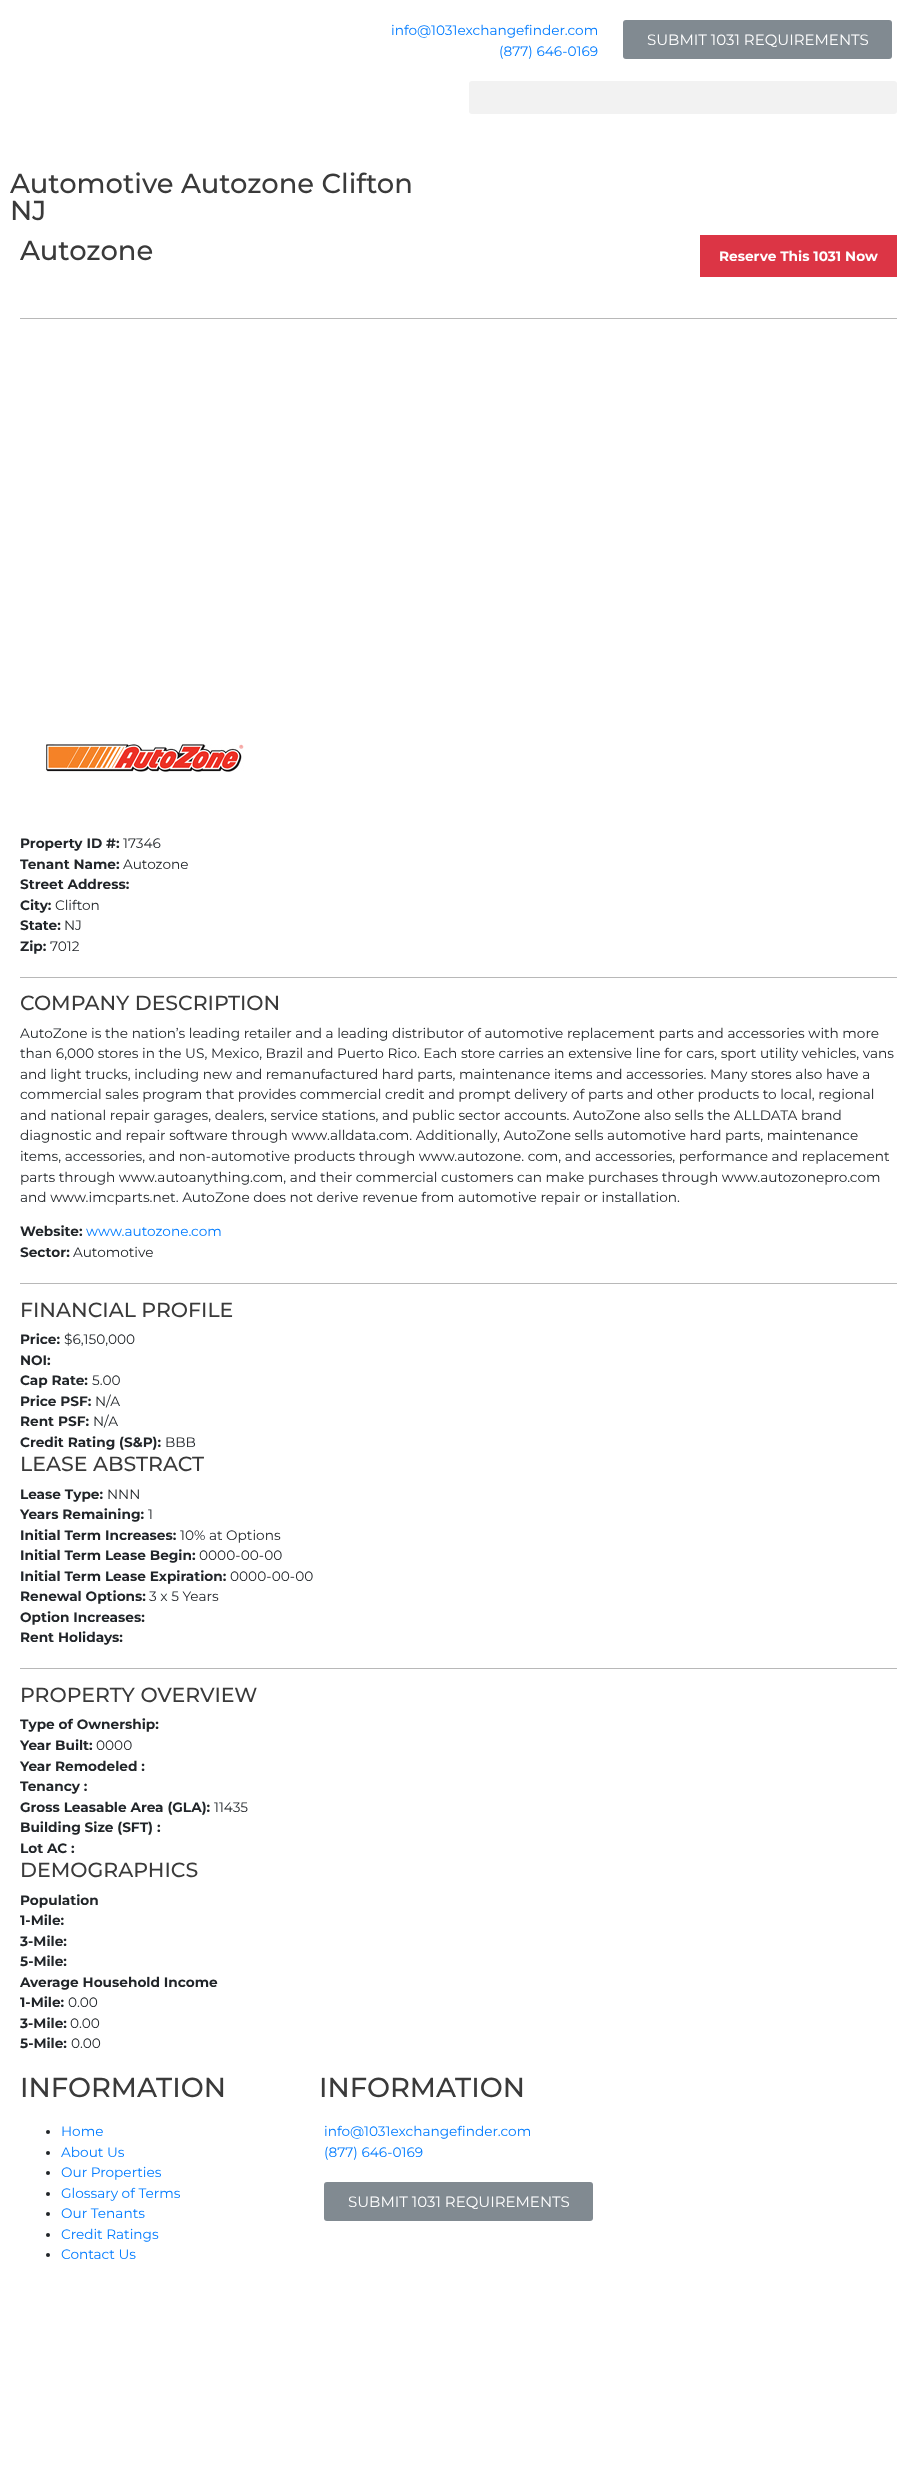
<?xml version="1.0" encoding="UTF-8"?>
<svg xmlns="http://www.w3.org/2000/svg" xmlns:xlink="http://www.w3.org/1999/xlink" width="917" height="2467">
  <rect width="100%" height="100%" fill="#ffffff" />
  <rect x="623" y="20" width="269" height="39" rx="3" fill="#818a91" />
  <rect x="469" y="81" width="428" height="33" rx="3" fill="#f2f2f2" />
  <rect x="700" y="235" width="197" height="42" fill="#dc3545" />
  <rect x="20" y="318" width="877" height="1" fill="#b8b8b8" />
  <image x="46" y="744" width="198" height="28" xlink:href="image1.png" />
  <rect x="20" y="977" width="877" height="1" fill="#b8b8b8" />
  <rect x="20" y="1283" width="877" height="1" fill="#b8b8b8" />
  <rect x="20" y="1668" width="877" height="1" fill="#b8b8b8" />
  <circle cx="48" cy="2132" r="2" fill="#212529" />
  <circle cx="48" cy="2153" r="2" fill="#212529" />
  <circle cx="48" cy="2173" r="2" fill="#212529" />
  <circle cx="48" cy="2194" r="2" fill="#212529" />
  <circle cx="48" cy="2214" r="2" fill="#212529" />
  <circle cx="48" cy="2235" r="2" fill="#212529" />
  <circle cx="48" cy="2255" r="2" fill="#212529" />
  <rect x="324" y="2182" width="269" height="39" rx="3" fill="#818a91" />
  <text x="391" y="35" style="font-family: Montserrat; font-size: 13.68px; fill: #007bff">info@1031exchangefinder.com</text>
  <text x="499" y="56" style="font-family: Montserrat; font-size: 13.68px; fill: #007bff">(877) 646-0169</text>
  <text x="647" y="45" style="font-family: Montserrat; font-size: 15px; fill: #ffffff">SUBMIT 1031 REQUIREMENTS</text>
  <text x="10" y="193" style="font-family: Montserrat; font-size: 27.4px; font-weight: 500; fill: #3a3a3a">Automotive Autozone Clifton</text>
  <text x="10" y="220" style="font-family: Montserrat; font-size: 27.4px; font-weight: 500; fill: #3a3a3a">NJ</text>
  <text x="20" y="260" style="font-family: Montserrat; font-size: 27.4px; font-weight: 500; fill: #3a3a3a">Autozone</text>
  <text x="719" y="261" style="font-family: Montserrat; font-size: 13.68px; font-weight: bold; fill: #ffffff">Reserve This 1031 Now</text>
  <text x="20" y="848" style="font-family: Montserrat; font-size: 13.68px; font-weight: bold; fill: #212529">Property ID #:</text>
  <text x="123" y="848" style="font-family: Montserrat; font-size: 13.68px; fill: #212529">17346</text>
  <text x="20" y="869" style="font-family: Montserrat; font-size: 13.68px; font-weight: bold; fill: #212529">Tenant Name:</text>
  <text x="123" y="869" style="font-family: Montserrat; font-size: 13.68px; fill: #212529">Autozone</text>
  <text x="20" y="889" style="font-family: Montserrat; font-size: 13.68px; font-weight: bold; fill: #212529">Street Address:</text>
  <text x="20" y="910" style="font-family: Montserrat; font-size: 13.68px; font-weight: bold; fill: #212529">City:</text>
  <text x="55" y="910" style="font-family: Montserrat; font-size: 13.68px; fill: #212529">Clifton</text>
  <text x="20" y="930" style="font-family: Montserrat; font-size: 13.68px; font-weight: bold; fill: #212529">State:</text>
  <text x="64" y="930" style="font-family: Montserrat; font-size: 13.68px; fill: #212529">NJ</text>
  <text x="20" y="951" style="font-family: Montserrat; font-size: 13.68px; font-weight: bold; fill: #212529">Zip:</text>
  <text x="50" y="951" style="font-family: Montserrat; font-size: 13.68px; fill: #212529">7012</text>
  <text x="20" y="1010" style="font-family: Montserrat; font-size: 20.5px; font-weight: 500; fill: #3a3a3a">COMPANY DESCRIPTION</text>
  <text x="20" y="1038" style="font-family: Montserrat; font-size: 13.68px; fill: #212529">AutoZone is the nation’s leading retailer and a leading distributor of automotive replacement parts and accessories with more</text>
  <text x="20" y="1058" style="font-family: Montserrat; font-size: 13.68px; fill: #212529">than 6,000 stores in the US, Mexico, Brazil and Puerto Rico. Each store carries an extensive line for cars, sport utility vehicles, vans</text>
  <text x="20" y="1079" style="font-family: Montserrat; font-size: 13.68px; fill: #212529">and light trucks, including new and remanufactured hard parts, maintenance items and accessories. Many stores also have a</text>
  <text x="20" y="1099" style="font-family: Montserrat; font-size: 13.68px; fill: #212529">commercial sales program that provides commercial credit and prompt delivery of parts and other products to local, regional</text>
  <text x="20" y="1120" style="font-family: Montserrat; font-size: 13.68px; fill: #212529">and national repair garages, dealers, service stations, and public sector accounts. AutoZone also sells the ALLDATA brand</text>
  <text x="20" y="1140" style="font-family: Montserrat; font-size: 13.68px; fill: #212529">diagnostic and repair software through www.alldata.com. Additionally, AutoZone sells automotive hard parts, maintenance</text>
  <text x="20" y="1161" style="font-family: Montserrat; font-size: 13.68px; fill: #212529">items, accessories, and non-automotive products through www.autozone. com, and accessories, performance and replacement</text>
  <text x="20" y="1182" style="font-family: Montserrat; font-size: 13.68px; fill: #212529">parts through www.autoanything.com, and their commercial customers can make purchases through www.autozonepro.com</text>
  <text x="20" y="1202" style="font-family: Montserrat; font-size: 13.68px; fill: #212529">and www.imcparts.net. AutoZone does not derive revenue from automotive repair or installation.</text>
  <text x="20" y="1236" style="font-family: Montserrat; font-size: 13.68px; font-weight: bold; fill: #212529">Website:</text>
  <text x="86" y="1236" style="font-family: Montserrat; font-size: 13.68px; fill: #007bff">www.autozone.com</text>
  <text x="20" y="1257" style="font-family: Montserrat; font-size: 13.68px; font-weight: bold; fill: #212529">Sector:</text>
  <text x="73" y="1257" style="font-family: Montserrat; font-size: 13.68px; fill: #212529">Automotive</text>
  <text x="20" y="1317" style="font-family: Montserrat; font-size: 20.5px; font-weight: 500; fill: #3a3a3a">FINANCIAL PROFILE</text>
  <text x="20" y="1344" style="font-family: Montserrat; font-size: 13.68px; font-weight: bold; fill: #212529">Price:</text>
  <text x="64" y="1344" style="font-family: Montserrat; font-size: 13.68px; fill: #212529">$6,150,000</text>
  <text x="20" y="1365" style="font-family: Montserrat; font-size: 13.68px; font-weight: bold; fill: #212529">NOI:</text>
  <text x="20" y="1385" style="font-family: Montserrat; font-size: 13.68px; font-weight: bold; fill: #212529">Cap Rate:</text>
  <text x="92" y="1385" style="font-family: Montserrat; font-size: 13.68px; fill: #212529">5.00</text>
  <text x="20" y="1406" style="font-family: Montserrat; font-size: 13.68px; font-weight: bold; fill: #212529">Price PSF:</text>
  <text x="95" y="1406" style="font-family: Montserrat; font-size: 13.68px; fill: #212529">N/A</text>
  <text x="20" y="1426" style="font-family: Montserrat; font-size: 13.68px; font-weight: bold; fill: #212529">Rent PSF:</text>
  <text x="93" y="1426" style="font-family: Montserrat; font-size: 13.68px; fill: #212529">N/A</text>
  <text x="20" y="1447" style="font-family: Montserrat; font-size: 13.68px; font-weight: bold; fill: #212529">Credit Rating (S&amp;P):</text>
  <text x="165" y="1447" style="font-family: Montserrat; font-size: 13.68px; fill: #212529">BBB</text>
  <text x="20" y="1471" style="font-family: Montserrat; font-size: 20.5px; font-weight: 500; fill: #3a3a3a">LEASE ABSTRACT</text>
  <text x="20" y="1499" style="font-family: Montserrat; font-size: 13.68px; font-weight: bold; fill: #212529">Lease Type:</text>
  <text x="107" y="1499" style="font-family: Montserrat; font-size: 13.68px; fill: #212529">NNN</text>
  <text x="20" y="1519" style="font-family: Montserrat; font-size: 13.68px; font-weight: bold; fill: #212529">Years Remaining:</text>
  <text x="148" y="1519" style="font-family: Montserrat; font-size: 13.68px; fill: #212529">1</text>
  <text x="20" y="1540" style="font-family: Montserrat; font-size: 13.68px; font-weight: bold; fill: #212529">Initial Term Increases:</text>
  <text x="180" y="1540" style="font-family: Montserrat; font-size: 13.68px; fill: #212529">10% at Options</text>
  <text x="20" y="1560" style="font-family: Montserrat; font-size: 13.68px; font-weight: bold; fill: #212529">Initial Term Lease Begin:</text>
  <text x="199" y="1560" style="font-family: Montserrat; font-size: 13.68px; fill: #212529">0000-00-00</text>
  <text x="20" y="1581" style="font-family: Montserrat; font-size: 13.68px; font-weight: bold; fill: #212529">Initial Term Lease Expiration:</text>
  <text x="230" y="1581" style="font-family: Montserrat; font-size: 13.68px; fill: #212529">0000-00-00</text>
  <text x="20" y="1601" style="font-family: Montserrat; font-size: 13.68px; font-weight: bold; fill: #212529">Renewal Options:</text>
  <text x="149" y="1601" style="font-family: Montserrat; font-size: 13.68px; fill: #212529">3 x 5 Years</text>
  <text x="20" y="1622" style="font-family: Montserrat; font-size: 13.68px; font-weight: bold; fill: #212529">Option Increases:</text>
  <text x="20" y="1642" style="font-family: Montserrat; font-size: 13.68px; font-weight: bold; fill: #212529">Rent Holidays:</text>
  <text x="20" y="1702" style="font-family: Montserrat; font-size: 20.5px; font-weight: 500; fill: #3a3a3a">PROPERTY OVERVIEW</text>
  <text x="20" y="1729" style="font-family: Montserrat; font-size: 13.68px; font-weight: bold; fill: #212529">Type of Ownership:</text>
  <text x="20" y="1750" style="font-family: Montserrat; font-size: 13.68px; font-weight: bold; fill: #212529">Year Built:</text>
  <text x="96" y="1750" style="font-family: Montserrat; font-size: 13.68px; fill: #212529">0000</text>
  <text x="20" y="1771" style="font-family: Montserrat; font-size: 13.68px; font-weight: bold; fill: #212529">Year Remodeled :</text>
  <text x="20" y="1791" style="font-family: Montserrat; font-size: 13.68px; font-weight: bold; fill: #212529">Tenancy :</text>
  <text x="20" y="1812" style="font-family: Montserrat; font-size: 13.68px; font-weight: bold; fill: #212529">Gross Leasable Area (GLA):</text>
  <text x="214" y="1812" style="font-family: Montserrat; font-size: 13.68px; fill: #212529">11435</text>
  <text x="20" y="1832" style="font-family: Montserrat; font-size: 13.68px; font-weight: bold; fill: #212529">Building Size (SFT) :</text>
  <text x="20" y="1853" style="font-family: Montserrat; font-size: 13.68px; font-weight: bold; fill: #212529">Lot AC :</text>
  <text x="20" y="1877" style="font-family: Montserrat; font-size: 20.5px; font-weight: 500; fill: #3a3a3a">DEMOGRAPHICS</text>
  <text x="20" y="1905" style="font-family: Montserrat; font-size: 13.68px; font-weight: bold; fill: #212529">Population</text>
  <text x="20" y="1925" style="font-family: Montserrat; font-size: 13.68px; font-weight: bold; fill: #212529">1-Mile:</text>
  <text x="20" y="1946" style="font-family: Montserrat; font-size: 13.68px; font-weight: bold; fill: #212529">3-Mile:</text>
  <text x="20" y="1966" style="font-family: Montserrat; font-size: 13.68px; font-weight: bold; fill: #212529">5-Mile:</text>
  <text x="20" y="1987" style="font-family: Montserrat; font-size: 13.68px; font-weight: bold; fill: #212529">Average Household Income</text>
  <text x="20" y="2007" style="font-family: Montserrat; font-size: 13.68px; font-weight: bold; fill: #212529">1-Mile:</text>
  <text x="68" y="2007" style="font-family: Montserrat; font-size: 13.68px; fill: #212529">0.00</text>
  <text x="20" y="2028" style="font-family: Montserrat; font-size: 13.68px; font-weight: bold; fill: #212529">3-Mile:</text>
  <text x="70" y="2028" style="font-family: Montserrat; font-size: 13.68px; fill: #212529">0.00</text>
  <text x="20" y="2048" style="font-family: Montserrat; font-size: 13.68px; font-weight: bold; fill: #212529">5-Mile:</text>
  <text x="71" y="2048" style="font-family: Montserrat; font-size: 13.68px; fill: #212529">0.00</text>
  <text x="20" y="2097" style="font-family: Montserrat; font-size: 27.4px; font-weight: 500; fill: #3a3a3a">INFORMATION</text>
  <text x="61" y="2136" style="font-family: Montserrat; font-size: 13.68px; fill: #007bff">Home</text>
  <text x="61" y="2157" style="font-family: Montserrat; font-size: 13.68px; fill: #007bff">About Us</text>
  <text x="61" y="2177" style="font-family: Montserrat; font-size: 13.68px; fill: #007bff">Our Properties</text>
  <text x="61" y="2198" style="font-family: Montserrat; font-size: 13.68px; fill: #007bff">Glossary of Terms</text>
  <text x="61" y="2218" style="font-family: Montserrat; font-size: 13.68px; fill: #007bff">Our Tenants</text>
  <text x="61" y="2239" style="font-family: Montserrat; font-size: 13.68px; fill: #007bff">Credit Ratings</text>
  <text x="61" y="2259" style="font-family: Montserrat; font-size: 13.68px; fill: #007bff">Contact Us</text>
  <text x="319" y="2097" style="font-family: Montserrat; font-size: 27.4px; font-weight: 500; fill: #3a3a3a">INFORMATION</text>
  <text x="324" y="2136" style="font-family: Montserrat; font-size: 13.68px; fill: #007bff">info@1031exchangefinder.com</text>
  <text x="324" y="2157" style="font-family: Montserrat; font-size: 13.68px; fill: #007bff">(877) 646-0169</text>
  <text x="348" y="2207" style="font-family: Montserrat; font-size: 15px; fill: #ffffff">SUBMIT 1031 REQUIREMENTS</text>
</svg>
